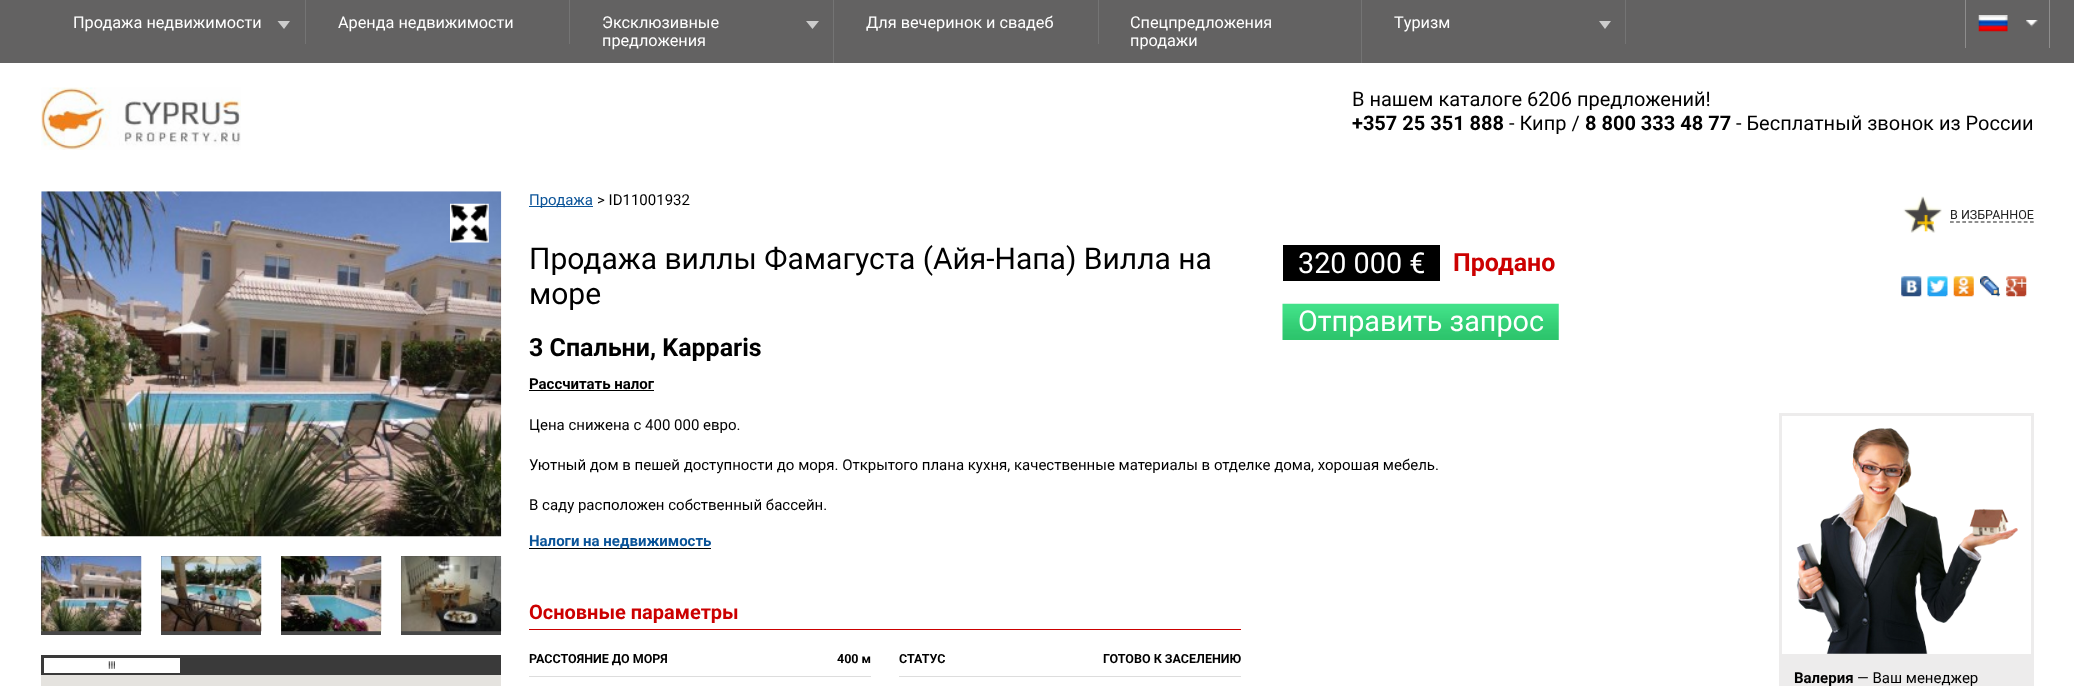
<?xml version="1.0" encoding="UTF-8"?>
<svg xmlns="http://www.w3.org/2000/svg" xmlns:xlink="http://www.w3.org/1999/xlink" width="2074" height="686">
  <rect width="100%" height="100%" fill="#ffffff" />
  <rect width="2074" height="63" fill="#636262" />
  <rect x="305" width="1" height="44" fill="#747474" />
  <path d="M 277.5 21 h 12.5 l -6 8 z" fill="#cccccc" />
  <rect x="569" width="1" height="44" fill="#747474" />
  <rect x="833" width="1" height="63" fill="#747474" />
  <path d="M 806 21 h 13 l -6.5 8 z" fill="#cccccc" />
  <rect x="1098" width="1" height="44" fill="#747474" />
  <rect x="1361" width="1" height="63" fill="#747474" />
  <rect x="1625" width="1" height="44" fill="#747474" />
  <path d="M 1599 21 h 12 l -6 8 z" fill="#cccccc" />
  <rect x="2049" width="1" height="48" fill="#8e8d8d" />
  <rect x="1965" width="1" height="48" fill="#8e8d8d" />
  <image x="1978" y="15" width="30" height="17" xlink:href="image1.png" />
  <image x="2026" y="20" width="12" height="7" xlink:href="image2.png" />
  <image x="41" y="87" width="200" height="63" xlink:href="image3.png" />
  <image x="41" y="191" width="461" height="346" xlink:href="image4.png" />
  <image x="450" y="203" width="39" height="40" xlink:href="image5.png" />
  <rect x="41" y="556" width="100" height="79" fill="#484848" />
  <image x="41" y="556" width="101" height="76" xlink:href="image6.png" />
  <rect x="161" y="556" width="100" height="79" fill="#484848" />
  <image x="161" y="556" width="101" height="76" xlink:href="image7.png" />
  <rect x="281" y="556" width="100" height="79" fill="#484848" />
  <image x="281" y="556" width="101" height="76" xlink:href="image8.png" />
  <rect x="401" y="556" width="100" height="79" fill="#484848" />
  <image x="401" y="556" width="101" height="76" xlink:href="image9.png" />
  <rect x="41" y="655" width="460" height="20" fill="#3a3a3a" />
  <rect x="44" y="658" width="136" height="15" fill="#ffffff" />
  <image x="108" y="661" width="7" height="8" xlink:href="image10.png" />
  <rect x="41" y="675" width="460" height="11" fill="#e5e3df" />
  <rect x="529" y="206" width="64" height="1" fill="#0b5499" />
  <image x="1903" y="196" width="39" height="37" xlink:href="image11.png" />
  <path d="M 1950 222 h 84" fill="none" stroke="#212121" stroke-width="1.2" stroke-dasharray="3.75 2.4" />
  <rect x="1283" y="245" width="157" height="36" fill="#000000" />
  <image x="1282" y="303" width="277" height="37" xlink:href="image12.png" />
  <image x="1901" y="276" width="21" height="21" xlink:href="image13.png" />
  <image x="1927" y="276" width="21" height="21" xlink:href="image14.png" />
  <image x="1953" y="276" width="21" height="21" xlink:href="image15.png" />
  <image x="1980" y="276" width="20" height="21" xlink:href="image16.png" />
  <image x="2006" y="276" width="21" height="21" xlink:href="image17.png" />
  <rect x="529" y="390" width="125" height="1" fill="#000000" />
  <rect x="529" y="548" width="182" height="1" fill="#000000" />
  <rect x="529" y="629" width="712" height="1" fill="#cc0000" />
  <rect x="529" y="676" width="342" height="1" fill="#dddddd" />
  <rect x="899" y="676" width="342" height="1" fill="#dddddd" />
  <rect x="1780.5" y="414.5" width="252" height="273" fill="none" stroke="#edecec" stroke-width="3" />
  <image x="1796" y="428" width="222" height="226" xlink:href="image18.png" />
  <rect x="1782" y="654" width="249" height="32" fill="#edecec" />
  <text x="73" y="28" style="font-family: Roboto; font-size: 16.25px; fill: #ffffff">Продажа недвижимости</text>
  <text x="338" y="28" style="font-family: Roboto; font-size: 16.25px; fill: #ffffff">Аренда недвижимости</text>
  <text x="602" y="28" style="font-family: Roboto; font-size: 16.25px; fill: #ffffff">Эксклюзивные</text>
  <text x="602" y="46" style="font-family: Roboto; font-size: 16.25px; fill: #ffffff">предложения</text>
  <text x="866" y="28" style="font-family: Roboto; font-size: 16.25px; fill: #ffffff">Для вечеринок и свадеб</text>
  <text x="1130" y="28" style="font-family: Roboto; font-size: 16.25px; fill: #ffffff">Спецпредложения</text>
  <text x="1130" y="46" style="font-family: Roboto; font-size: 16.25px; fill: #ffffff">продажи</text>
  <text x="1394" y="28" style="font-family: Roboto; font-size: 16.25px; fill: #ffffff">Тyризм</text>
  <text x="1352" y="106" style="font-family: Roboto; font-size: 20px; fill: #000000">В нашем каталоге 6206 предложений!</text>
  <text x="1352" y="130" style="font-family: Roboto; font-size: 20px; font-weight: bold; fill: #000000">+357 25 351 888</text>
  <text x="1509" y="130" style="font-family: Roboto; font-size: 20px; fill: #000000">- Кипр /</text>
  <text x="1585" y="130" style="font-family: Roboto; font-size: 20px; font-weight: bold; fill: #000000">8 800 333 48 77</text>
  <text x="1736" y="130" style="font-family: Roboto; font-size: 20px; fill: #000000">- Бесплатный звонок из России</text>
  <text x="529" y="205" style="font-family: Roboto; font-size: 15px; fill: #0b5499">Продажа</text>
  <text x="597" y="205" style="font-family: Roboto; font-size: 15px; fill: #000000">&gt; ID11001932</text>
  <text x="1950" y="219" style="font-family: Roboto; font-size: 12.5px; fill: #212121">В ИЗБРАННОЕ</text>
  <text x="529" y="269" style="font-family: Roboto; font-size: 30px; fill: #000000">Продажа виллы Фамагуста (Айя-Напа) Вилла на</text>
  <text x="529" y="304" style="font-family: Roboto; font-size: 30px; fill: #000000">море</text>
  <text x="529" y="356" style="font-family: Roboto; font-size: 25px; font-weight: bold; fill: #000000">3 Спальни, Kapparis</text>
  <text x="1298" y="273" style="font-family: Roboto; font-size: 28.75px; fill: #ffffff">320 000 €</text>
  <text x="1453" y="271" style="font-family: Roboto; font-size: 25px; font-weight: bold; fill: #cc0000">Продано</text>
  <text x="1298" y="331" style="font-family: Roboto; font-size: 28.75px; fill: #ffffff">Отправить запрос</text>
  <text x="529" y="389" style="font-family: Roboto; font-size: 15px; font-weight: bold; fill: #000000">Рассчитать налог</text>
  <text x="529" y="430" style="font-family: Roboto; font-size: 15px; fill: #000000">Цена снижена с 400 000 евро.</text>
  <text x="529" y="470" style="font-family: Roboto; font-size: 15px; fill: #000000">Уютный дом в пешей доступности до моря. Открытого плана кухня, качественные материалы в отделке дома, хорошая мебель.</text>
  <text x="529" y="510" style="font-family: Roboto; font-size: 15px; fill: #000000">В саду расположен собственный бассейн.</text>
  <text x="529" y="546" style="font-family: Roboto; font-size: 15px; font-weight: bold; fill: #0b5499">Налоги на недвижимость</text>
  <text x="529" y="619" style="font-family: Roboto; font-size: 20px; font-weight: bold; fill: #cc0000">Основные параметры</text>
  <text x="529" y="663" style="font-family: Roboto; font-size: 12.5px; font-weight: bold; fill: #000000">РАССТОЯНИЕ ДО МОРЯ</text>
  <text x="837" y="663" style="font-family: Roboto; font-size: 12.5px; font-weight: bold; fill: #000000">400 м</text>
  <text x="899" y="663" style="font-family: Roboto; font-size: 12.5px; font-weight: bold; fill: #000000">СТАТУС</text>
  <text x="1103" y="663" style="font-family: Roboto; font-size: 12.5px; font-weight: bold; fill: #000000">ГОТОВО К ЗАСЕЛЕНИЮ</text>
  <text x="1794" y="683" style="font-family: Roboto; font-size: 15px; font-weight: bold; fill: #000000">Валерия</text>
  <text x="1857" y="683" style="font-family: Roboto; font-size: 15px; fill: #000000">— Ваш менеджер</text>
</svg>
